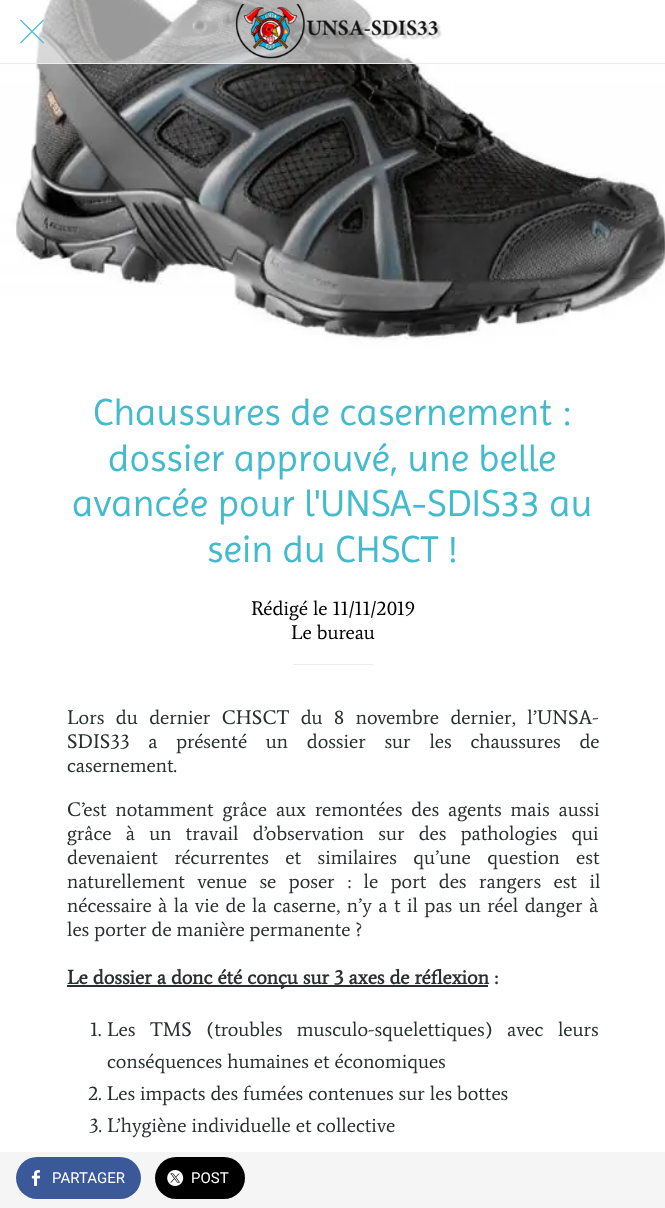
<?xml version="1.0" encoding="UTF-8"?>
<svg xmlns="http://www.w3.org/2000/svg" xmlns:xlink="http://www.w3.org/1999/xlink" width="665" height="1208">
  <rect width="100%" height="100%" fill="#ffffff" />
  <image x="0" y="0" width="665" height="350" xlink:href="image3.png" />
  <rect x="36" width="384" height="63" fill="#ffffff" fill-opacity="0.6" />
  <rect y="63" width="665" height="1" fill="#ededed" />
  <image x="20" y="19" width="24" height="25" xlink:href="image1.png" />
  <image x="235" y="4" width="207" height="55" xlink:href="image2.png" />
  <rect x="293" y="664" width="80" height="1" fill="#ededed" />
  <rect x="67" y="985" width="421" height="2" fill="#2a2f30" />
  <rect y="1152" width="665" height="56" fill="#f5f5f5" />
  <rect x="16" y="1157" width="125" height="42" rx="21" fill="#3b5999" />
  <image x="31" y="1170" width="10" height="16" xlink:href="image4.png" />
  <rect x="155" y="1157" width="90" height="42" rx="21" fill="#000000" />
  <image x="167" y="1170" width="17" height="16" xlink:href="image5.png" />
  <text x="93" y="425" style="font-family: Imprima; font-size: 38px; fill: #43bbcd">Chaussures de casernement :</text>
  <text x="108" y="471" style="font-family: Imprima; font-size: 38px; fill: #43bbcd">dossier approuvé, une belle</text>
  <text x="72" y="516" style="font-family: Imprima; font-size: 38px; fill: #43bbcd">avancée pour l'UNSA-SDIS33 au</text>
  <text x="207" y="562" style="font-family: Imprima; font-size: 38px; fill: #43bbcd">sein du CHSCT !</text>
  <text x="251" y="615" style="font-family: Average; font-size: 20px; fill: #000000">Rédigé le 11/11/2019</text>
  <text x="291" y="639" style="font-family: Average; font-size: 20px; fill: #000000">Le bureau</text>
  <text x="67" y="724" word-spacing="6.5" style="font-family: Average; font-size: 20px; fill: #2a2f30">Lors du dernier CHSCT du 8 novembre dernier, l’UNSA-</text>
  <text x="67" y="748" word-spacing="13.75" style="font-family: Average; font-size: 20px; fill: #2a2f30">SDIS33 a présenté un dossier sur les chaussures de</text>
  <text x="67" y="772" style="font-family: Average; font-size: 20px; fill: #2a2f30">casernement.</text>
  <text x="67" y="816" word-spacing="4" style="font-family: Average; font-size: 20px; fill: #2a2f30">C’est notamment grâce aux remontées des agents mais aussi</text>
  <text x="67" y="840" word-spacing="9.25" style="font-family: Average; font-size: 20px; fill: #2a2f30">grâce à un travail d’observation sur des pathologies qui</text>
  <text x="67" y="864" word-spacing="11.5" style="font-family: Average; font-size: 20px; fill: #2a2f30">devenaient récurrentes et similaires qu’une question est</text>
  <text x="67" y="888" word-spacing="7.5" style="font-family: Average; font-size: 20px; fill: #2a2f30">naturellement venue se poser : le port des rangers est il</text>
  <text x="67" y="912" word-spacing="1.5" style="font-family: Average; font-size: 20px; fill: #2a2f30">nécessaire à la vie de la caserne, n’y a t il pas un réel danger à</text>
  <text x="67" y="936" style="font-family: Average; font-size: 20px; fill: #2a2f30">les porter de manière permanente ?</text>
  <text x="67" y="984" style="font-family: Average; font-size: 20px; font-weight: bold; fill: #2a2f30">Le dossier a donc été conçu sur 3 axes de réflexion :</text>
  <text x="90" y="1036" style="font-family: Average; font-size: 20px; fill: #2a2f30">1.</text>
  <text x="107" y="1036" word-spacing="9.5" style="font-family: Average; font-size: 20px; fill: #2a2f30">Les TMS (troubles musculo-squelettiques) avec leurs</text>
  <text x="107" y="1068" style="font-family: Average; font-size: 20px; fill: #2a2f30">conséquences humaines et économiques</text>
  <text x="88" y="1100" style="font-family: Average; font-size: 20px; fill: #2a2f30">2. Les impacts des fumées contenues sur les bottes</text>
  <text x="89" y="1132" style="font-family: Average; font-size: 20px; fill: #2a2f30">3. L’hygiène individuelle et collective</text>
  <text x="52" y="1183" style="font-family: Roboto; font-size: 15px; fill: #ffffff">PARTAGER</text>
  <text x="191" y="1183" style="font-family: Roboto; font-size: 15px; fill: #ffffff">POST</text>
</svg>
